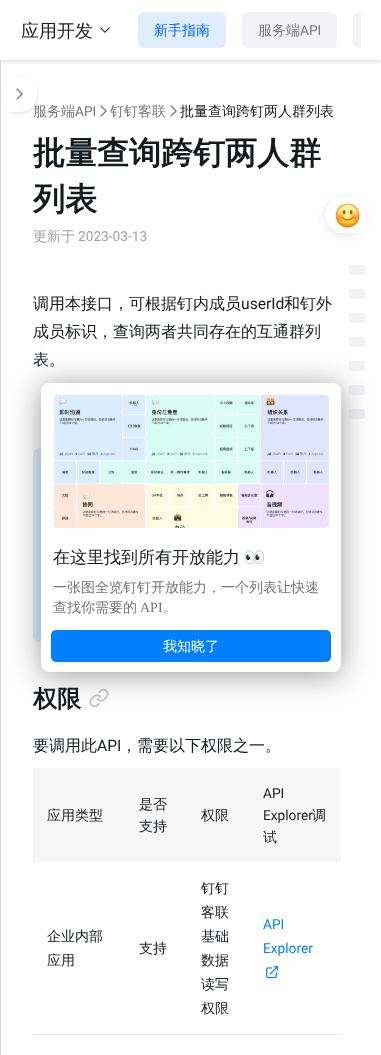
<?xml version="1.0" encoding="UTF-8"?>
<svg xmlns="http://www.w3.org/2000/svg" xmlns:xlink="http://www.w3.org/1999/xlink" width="381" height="1055">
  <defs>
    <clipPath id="clip1"><rect x="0" y="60" width="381" height="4" /></clipPath>
  </defs>
  <rect width="100%" height="100%" fill="#ffffff" />
  <rect y="60" width="1" height="995" fill="#f6f6f6" />
  <g clip-path="url(#clip1)">
    <rect y="2" width="381" height="60" fill="#000000" fill-opacity="0.12" filter="blur(2px)" />
  </g>
  <image x="100" y="27" width="10" height="6" xlink:href="image1.png" />
  <rect x="138" y="12" width="88" height="36" rx="6" fill="#e0edff" />
  <rect x="242" y="12" width="95" height="36" rx="6" fill="#f3f3f5" />
  <path d="M 359 12 h 2 v 36 h -2 c -3.5 0 -6 -2.5 -6 -6 v -24 c 0 -3.5 2.5 -6 6 -6 z" fill="#f3f3f5" />
  <rect y="60" width="1" height="995" fill="#7e868e" fill-opacity="0.24" />
  <rect x="1" y="78" width="36" height="36" rx="18" fill="#000000" fill-opacity="0.1" filter="blur(2px)" />
  <image x="100" y="105" width="7" height="12" xlink:href="image2.png" />
  <image x="170" y="105" width="7" height="12" xlink:href="image2.png" />
  <rect x="33" y="448" width="308" height="194" rx="6" fill="#e0f0ff" />
  <image x="89" y="688" width="20" height="20" xlink:href="image3.png" />
  <rect x="33" y="768" width="308" height="94" fill="#f6f6f6" />
  <rect x="33" y="1034" width="308" height="1" fill="#e0e2e4" />
  <image x="266" y="966" width="13" height="13" xlink:href="image4.png" />
  <rect x="325" y="199" width="40" height="36" rx="18" fill="#000000" fill-opacity="0.1" filter="blur(5px)" />
  <path d="M 343 197 h 22 v 36 h -22 c -10 0 -18 -8 -18 -18 c 0 -10 8 -18 18 -18 z" fill="#ffffff" />
  <image x="335" y="203" width="25" height="25" xlink:href="image5.png" />
  <rect x="349" y="265" width="16" height="10" rx="2" fill="#f2f2f6" />
  <rect x="349" y="289" width="16" height="10" rx="2" fill="#f2f2f6" />
  <rect x="349" y="313" width="16" height="10" rx="2" fill="#f2f2f6" />
  <rect x="349" y="337" width="16" height="10" rx="2" fill="#f2f2f6" />
  <rect x="349" y="361" width="16" height="10" rx="2" fill="#f2f2f6" />
  <rect x="349" y="385" width="16" height="10" rx="2" fill="#f2f2f6" />
  <rect x="349" y="409" width="16" height="10" rx="2" fill="#f2f2f6" />
  <rect x="41" y="386" width="300" height="289" rx="8" fill="#000000" fill-opacity="0.4" filter="blur(15px)" />
  <rect x="41" y="383" width="300" height="289" rx="8" fill="#ffffff" />
  <image x="53" y="395" width="276" height="133" xlink:href="image6.png" />
  <rect x="51" y="630" width="280" height="32" rx="5" fill="#007fff" />
  <text x="21" y="37" style="font-family: WenQuanYi Zen Hei; font-size: 18px; font-weight: 500; fill: #171a1d">应用开发</text>
  <text x="154" y="35" style="font-family: WenQuanYi Zen Hei; font-size: 14px; font-weight: 500; fill: #0066ff">新手指南</text>
  <text x="258" y="35" style="font-family: WenQuanYi Zen Hei; font-size: 14px; font-weight: 500; fill: #747677">服务端</text>
  <text x="300" y="35" style="font-family: Roboto; font-size: 14px; fill: #747677">API</text>
  <text x="33" y="116" style="font-family: WenQuanYi Zen Hei; font-size: 14px; font-weight: 500; fill: #747677">服务端</text>
  <path d="M 1 76 h 18 c 10 0 18 8 18 18 c 0 10 -8 18 -18 18 h -18 z" fill="#ffffff" />
  <image x="16" y="88" width="7" height="12" xlink:href="image2.png" />
  <text x="75" y="116" style="font-family: Roboto; font-size: 14px; fill: #747677">API</text>
  <text x="110" y="116" style="font-family: WenQuanYi Zen Hei; font-size: 14px; font-weight: 500; fill: #747677">钉钉客联</text>
  <text x="180" y="116" style="font-family: WenQuanYi Zen Hei; font-size: 14px; font-weight: 500; fill: #171a1d">批量查询跨钉两人群列表</text>
  <text x="33" y="164" style="font-family: WenQuanYi Zen Hei; font-size: 32px; font-weight: bold; fill: #171a1d">批量查询跨钉两人群</text>
  <text x="33" y="210" style="font-family: WenQuanYi Zen Hei; font-size: 32px; font-weight: bold; fill: #171a1d">列表</text>
  <text x="33" y="241" style="font-family: WenQuanYi Zen Hei; font-size: 14px; font-weight: 500; fill: #a2a3a5">更新于</text>
  <text x="78" y="241" style="font-family: Roboto; font-size: 14px; fill: #a2a3a5">2023-03-13</text>
  <text x="33" y="309" style="font-family: WenQuanYi Zen Hei; font-size: 16px; font-weight: 500; fill: #171a1d">调用本接口，可根据钉内成员</text>
  <text x="241" y="309" style="font-family: Roboto; font-size: 16px; fill: #171a1d">userId</text>
  <text x="284" y="309" style="font-family: WenQuanYi Zen Hei; font-size: 16px; font-weight: 500; fill: #171a1d">和钉外</text>
  <text x="33" y="337" style="font-family: WenQuanYi Zen Hei; font-size: 16px; font-weight: 500; fill: #171a1d">成员标识，查询两者共同存在的互通群列</text>
  <text x="33" y="365" style="font-family: WenQuanYi Zen Hei; font-size: 16px; font-weight: 500; fill: #171a1d">表。</text>
  <text x="33" y="707" style="font-family: WenQuanYi Zen Hei; font-size: 24px; font-weight: bold; fill: #171a1d">权限</text>
  <text x="33" y="751" style="font-family: WenQuanYi Zen Hei; font-size: 16px; font-weight: 500; fill: #171a1d">要调用此</text>
  <text x="97" y="751" style="font-family: Roboto; font-size: 16px; fill: #171a1d">API</text>
  <text x="121" y="751" style="font-family: WenQuanYi Zen Hei; font-size: 16px; font-weight: 500; fill: #171a1d">，需要以下权限之一。</text>
  <text x="47" y="820" style="font-family: WenQuanYi Zen Hei; font-size: 14px; font-weight: 500; fill: #171a1d">应用类型</text>
  <text x="139" y="809" style="font-family: WenQuanYi Zen Hei; font-size: 14px; font-weight: 500; fill: #171a1d">是否</text>
  <text x="139" y="831" style="font-family: WenQuanYi Zen Hei; font-size: 14px; font-weight: 500; fill: #171a1d">支持</text>
  <text x="201" y="820" style="font-family: WenQuanYi Zen Hei; font-size: 14px; font-weight: 500; fill: #171a1d">权限</text>
  <text x="263" y="798" style="font-family: Roboto; font-size: 14px; fill: #171a1d">API</text>
  <text x="263" y="820" style="font-family: Roboto; font-size: 14px; fill: #171a1d">Explorer</text>
  <text x="312" y="820" style="font-family: WenQuanYi Zen Hei; font-size: 14px; font-weight: 500; fill: #171a1d">调</text>
  <text x="263" y="842" style="font-family: WenQuanYi Zen Hei; font-size: 14px; font-weight: 500; fill: #171a1d">试</text>
  <text x="47" y="941" style="font-family: WenQuanYi Zen Hei; font-size: 14px; font-weight: 500; fill: #171a1d">企业内部</text>
  <text x="47" y="965" style="font-family: WenQuanYi Zen Hei; font-size: 14px; font-weight: 500; fill: #171a1d">应用</text>
  <text x="139" y="953" style="font-family: WenQuanYi Zen Hei; font-size: 14px; font-weight: 500; fill: #171a1d">支持</text>
  <text x="201" y="893" style="font-family: WenQuanYi Zen Hei; font-size: 14px; font-weight: 500; fill: #171a1d">钉钉</text>
  <text x="201" y="917" style="font-family: WenQuanYi Zen Hei; font-size: 14px; font-weight: 500; fill: #171a1d">客联</text>
  <text x="201" y="941" style="font-family: WenQuanYi Zen Hei; font-size: 14px; font-weight: 500; fill: #171a1d">基础</text>
  <text x="201" y="965" style="font-family: WenQuanYi Zen Hei; font-size: 14px; font-weight: 500; fill: #171a1d">数据</text>
  <text x="201" y="989" style="font-family: WenQuanYi Zen Hei; font-size: 14px; font-weight: 500; fill: #171a1d">读写</text>
  <text x="201" y="1013" style="font-family: WenQuanYi Zen Hei; font-size: 14px; font-weight: 500; fill: #171a1d">权限</text>
  <text x="263" y="929" style="font-family: Roboto; font-size: 14px; fill: #007fff">API</text>
  <text x="263" y="953" style="font-family: Roboto; font-size: 14px; fill: #007fff">Explorer</text>
  <text x="53" y="563" style="font-family: WenQuanYi Zen Hei; font-size: 17px; font-weight: 500; fill: #171a1d">在这里找到所有开放能力</text>
  <text x="244" y="563" style="font-family: Noto Color Emoji; font-size: 17px; fill: #171a1d">👀</text>
  <text x="53" y="592" style="font-family: WenQuanYi Zen Hei; font-size: 14px; font-weight: 500; fill: #747677">一张图全览钉钉开放能力，一个列表让快速</text>
  <text x="53" y="612" style="font-family: WenQuanYi Zen Hei; font-size: 14px; font-weight: 500; fill: #747677">查找你需要的</text>
  <text x="140" y="612" style="font-family: Liberation Serif; font-size: 14px; fill: #747677">API</text>
  <text x="163" y="612" style="font-family: WenQuanYi Zen Hei; font-size: 14px; font-weight: 500; fill: #747677">。</text>
  <text x="163" y="651" style="font-family: WenQuanYi Zen Hei; font-size: 14px; font-weight: 500; fill: #ffffff">我知晓了</text>
</svg>
